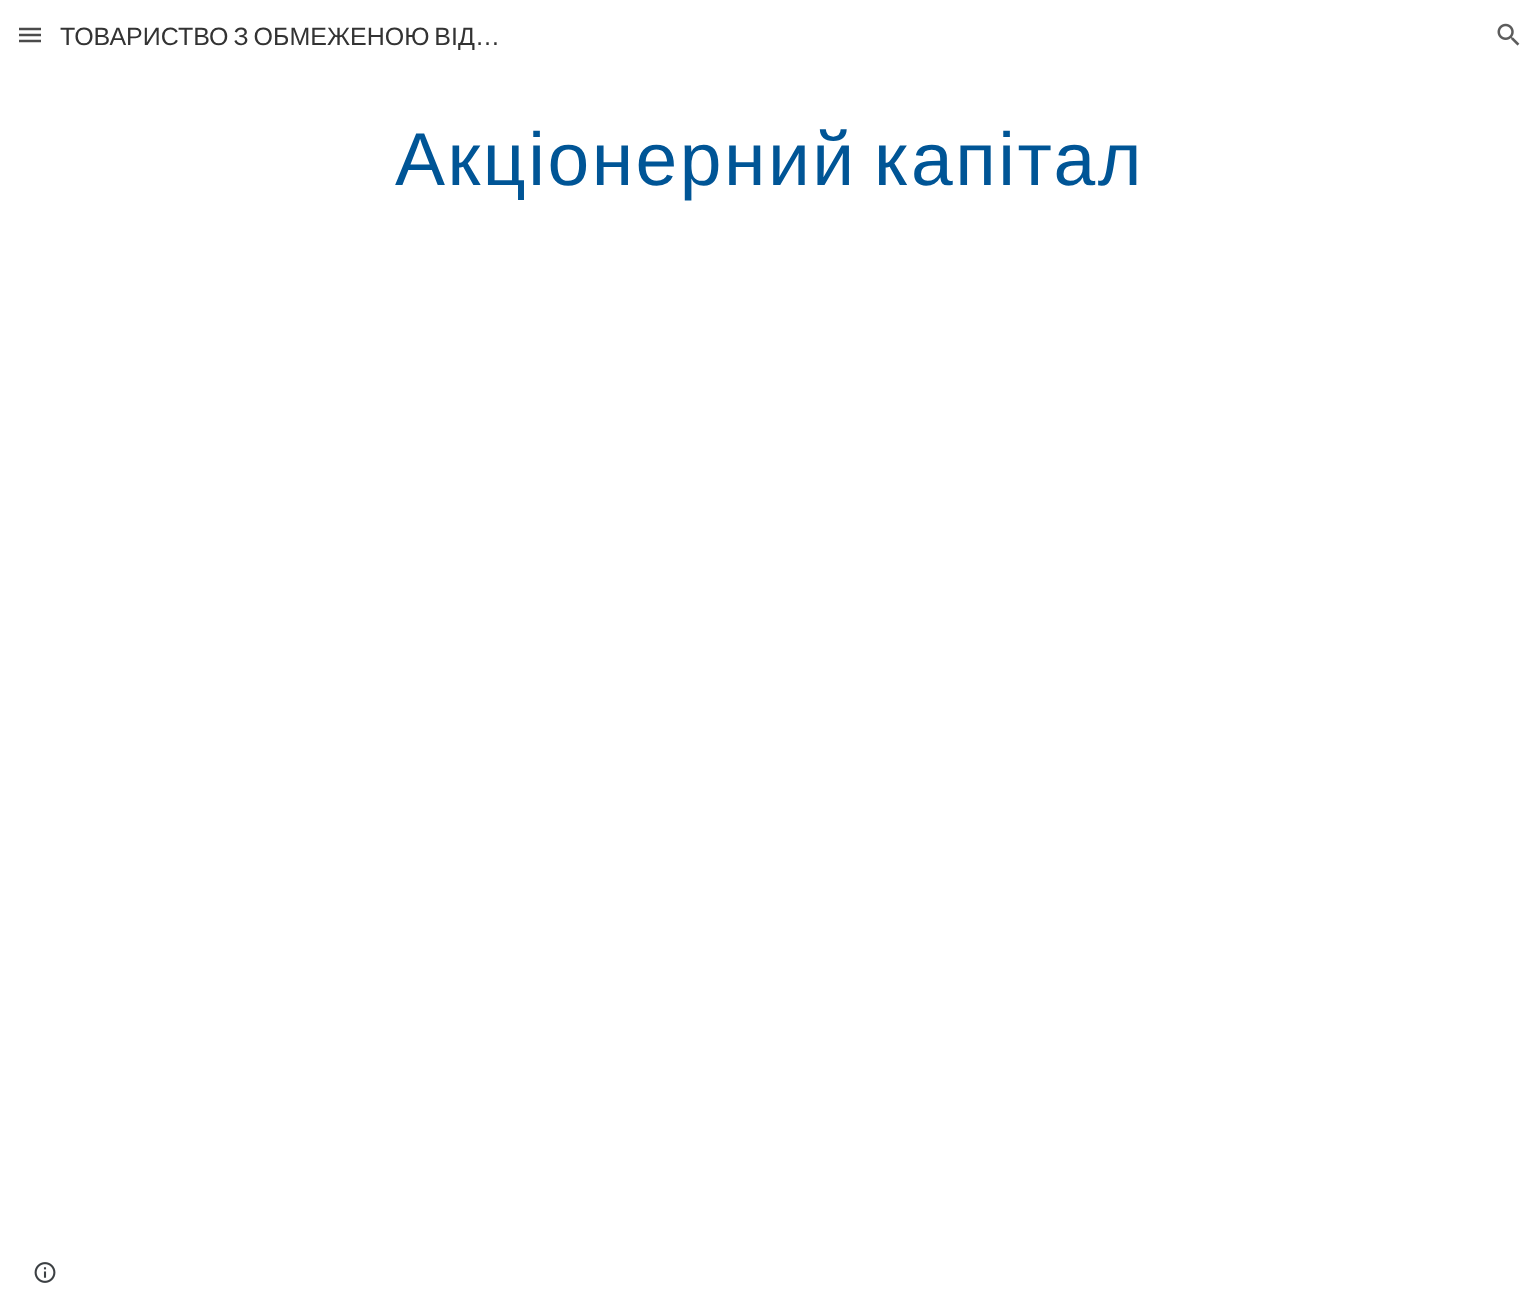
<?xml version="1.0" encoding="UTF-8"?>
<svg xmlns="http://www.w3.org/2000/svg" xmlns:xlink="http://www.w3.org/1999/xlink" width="1538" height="1314">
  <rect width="100%" height="100%" fill="#ffffff" />
  <path d="M 19 29 h 22 m -22 6 h 22 m -22 6 h 22" fill="none" stroke="#4b4b4b" stroke-width="2.5" />
  <image x="1497" y="23" width="23" height="23" xlink:href="image1.png" />
  <image x="34" y="1262" width="22" height="21" xlink:href="image2.png" />
  <text x="60" y="45" word-spacing="-2" style="font-family: Liberation Sans; font-size: 25px; fill: #333333">ТОВАРИСТВО З ОБМЕЖЕНОЮ ВІД…</text>
  <text x="395" y="185" word-spacing="-6" style="font-family: Liberation Sans; font-size: 75px; letter-spacing: 2.5px; fill: #005596">Акціонерний капітал</text>
</svg>
